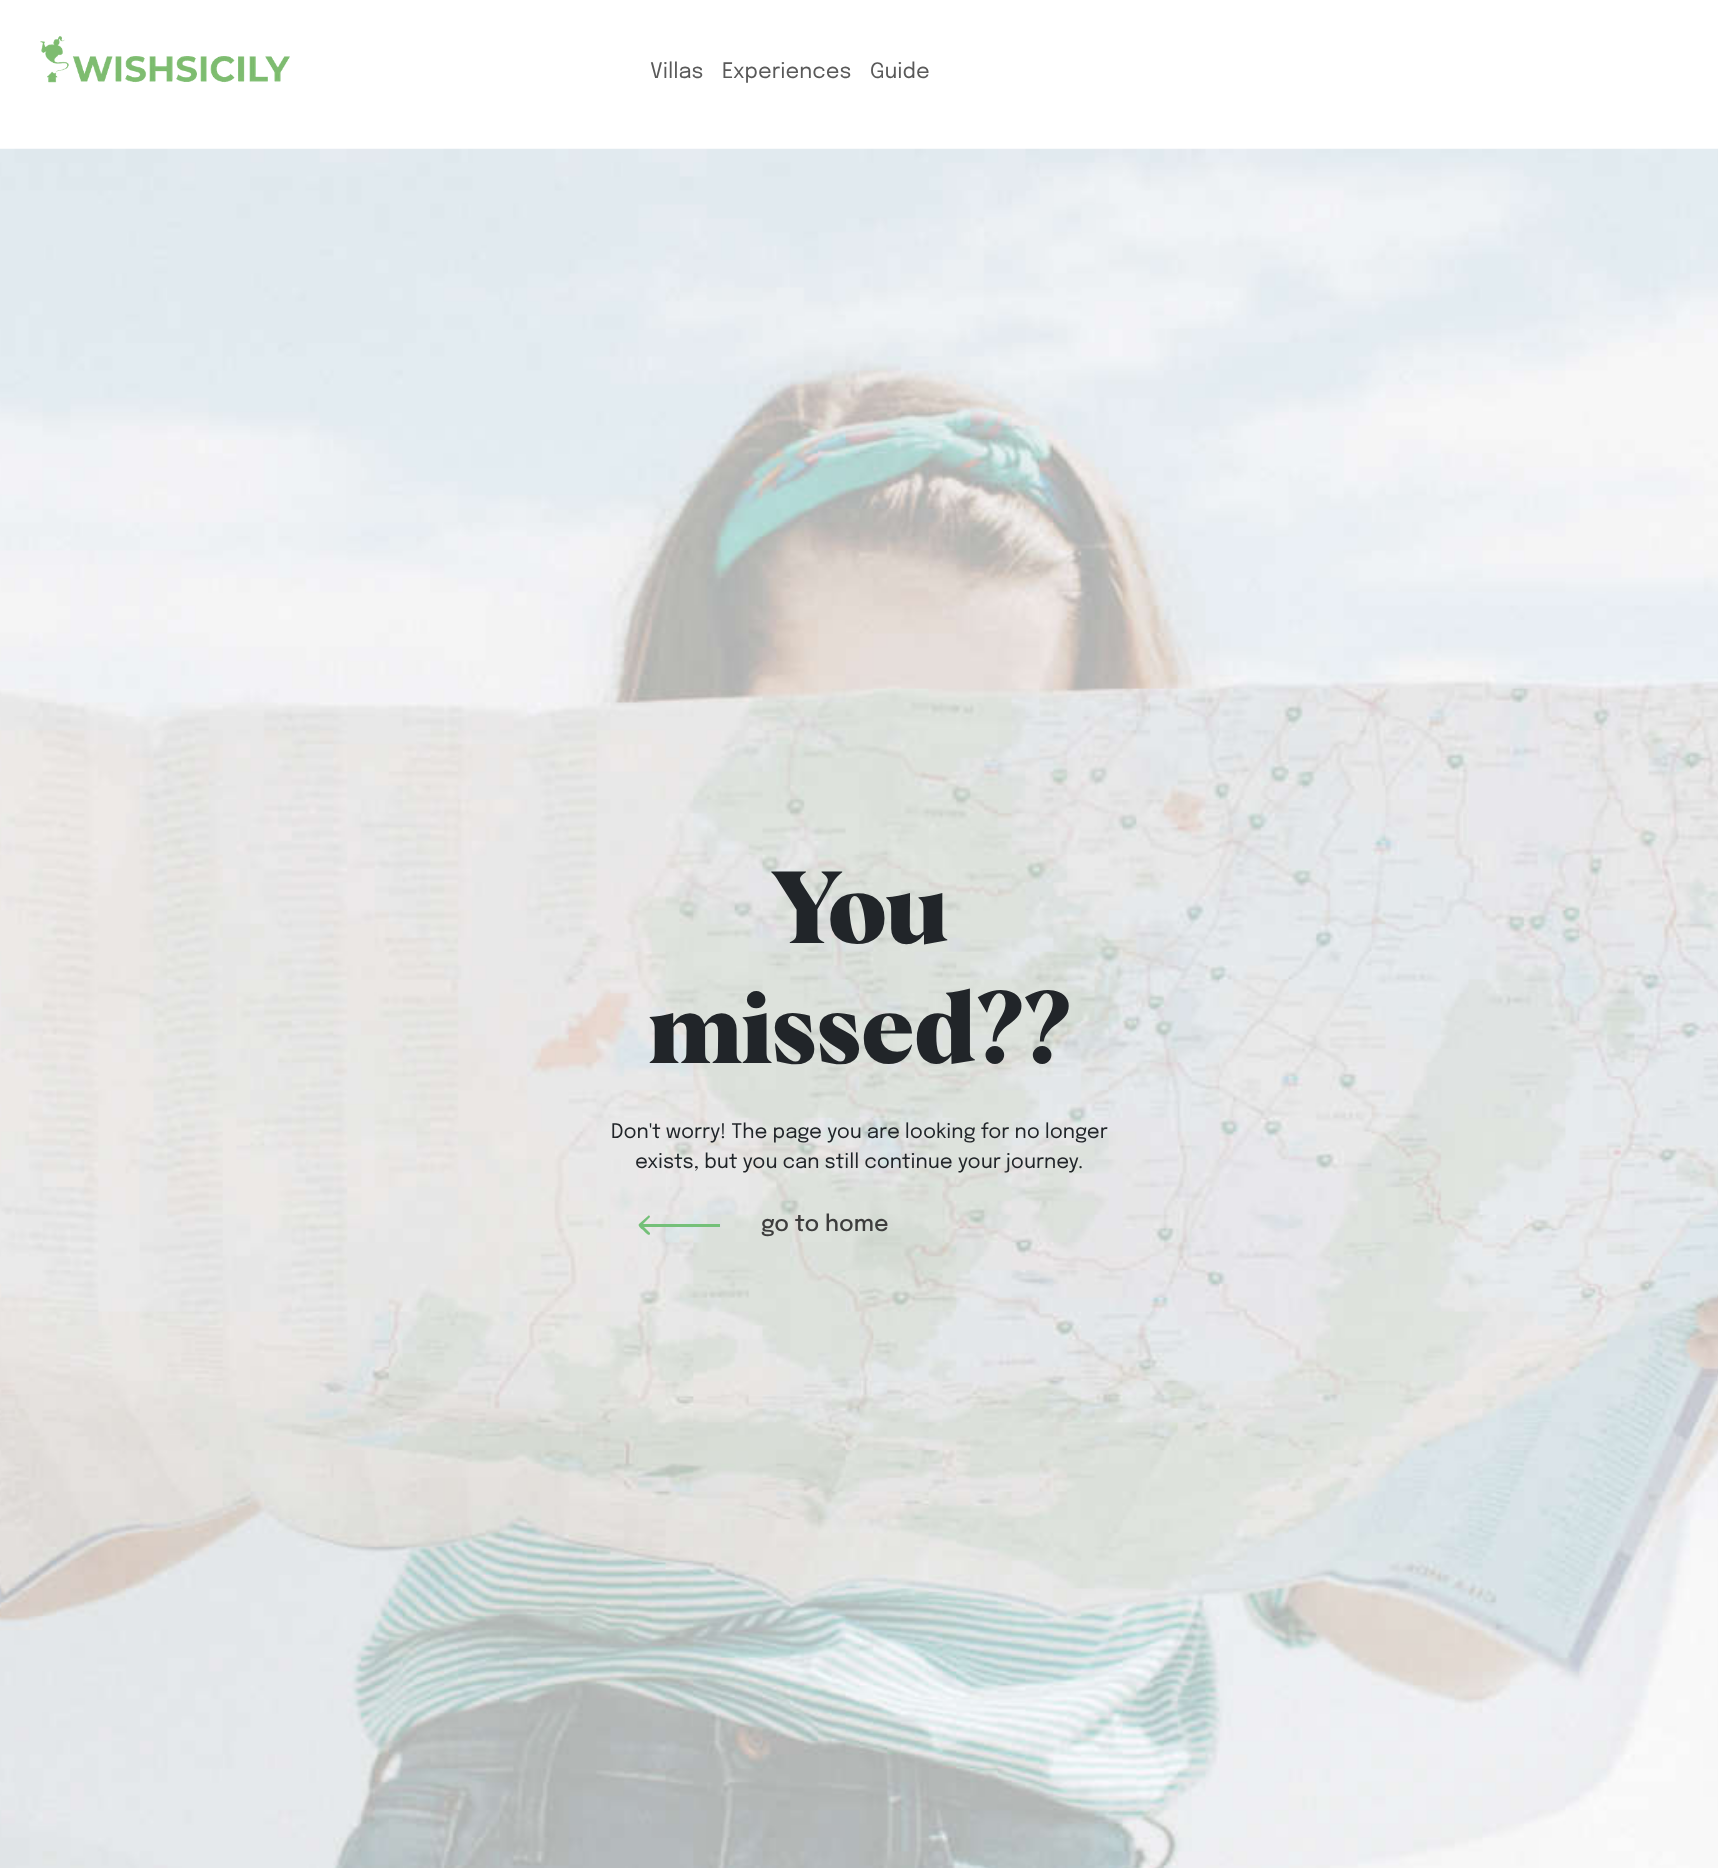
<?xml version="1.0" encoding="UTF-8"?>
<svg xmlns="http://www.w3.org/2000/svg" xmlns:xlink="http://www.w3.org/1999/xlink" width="1718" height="1868">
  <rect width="100%" height="100%" fill="#ffffff" />
  <image x="40" y="36" width="250" height="47" xlink:href="image1.png" />
  <image x="0" y="148" width="1718" height="1720" xlink:href="image2.png" />
  <path d="M 639 1224 c -2 2 4 6 4 6 c 1 1 6 7 7 4 v -1 l -8 -8 l 8 -8 c 0 -1 -1 -2 -2 -1 z m 81 0 h -80 v 3 h 80 z" fill="#74c079" />
  <text x="650" y="78" style="font-family: Epilogue; font-size: 21.25px; fill: #595959">Villas</text>
  <text x="722" y="78" style="font-family: Epilogue; font-size: 21.25px; fill: #595959">Experiences</text>
  <text x="870" y="78" style="font-family: Epilogue; font-size: 21.25px; fill: #595959">Guide</text>
  <text x="771" y="943" style="font-family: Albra; font-size: 100px; font-weight: bold; fill: #212529">You</text>
  <text x="649" y="1063" style="font-family: Albra; font-size: 100px; font-weight: bold; fill: #212529">missed??</text>
  <text x="611" y="1138" style="font-family: Epilogue; font-size: 20px; fill: #212529">Don't worry! The page you are looking for no longer</text>
  <text x="635" y="1168" style="font-family: Epilogue; font-size: 20px; fill: #212529">exists, but you can still continue your journey.</text>
  <text x="761" y="1231" style="font-family: Epilogue; font-size: 22.5px; font-weight: 500; fill: #3d3d3d">go to home</text>
</svg>
